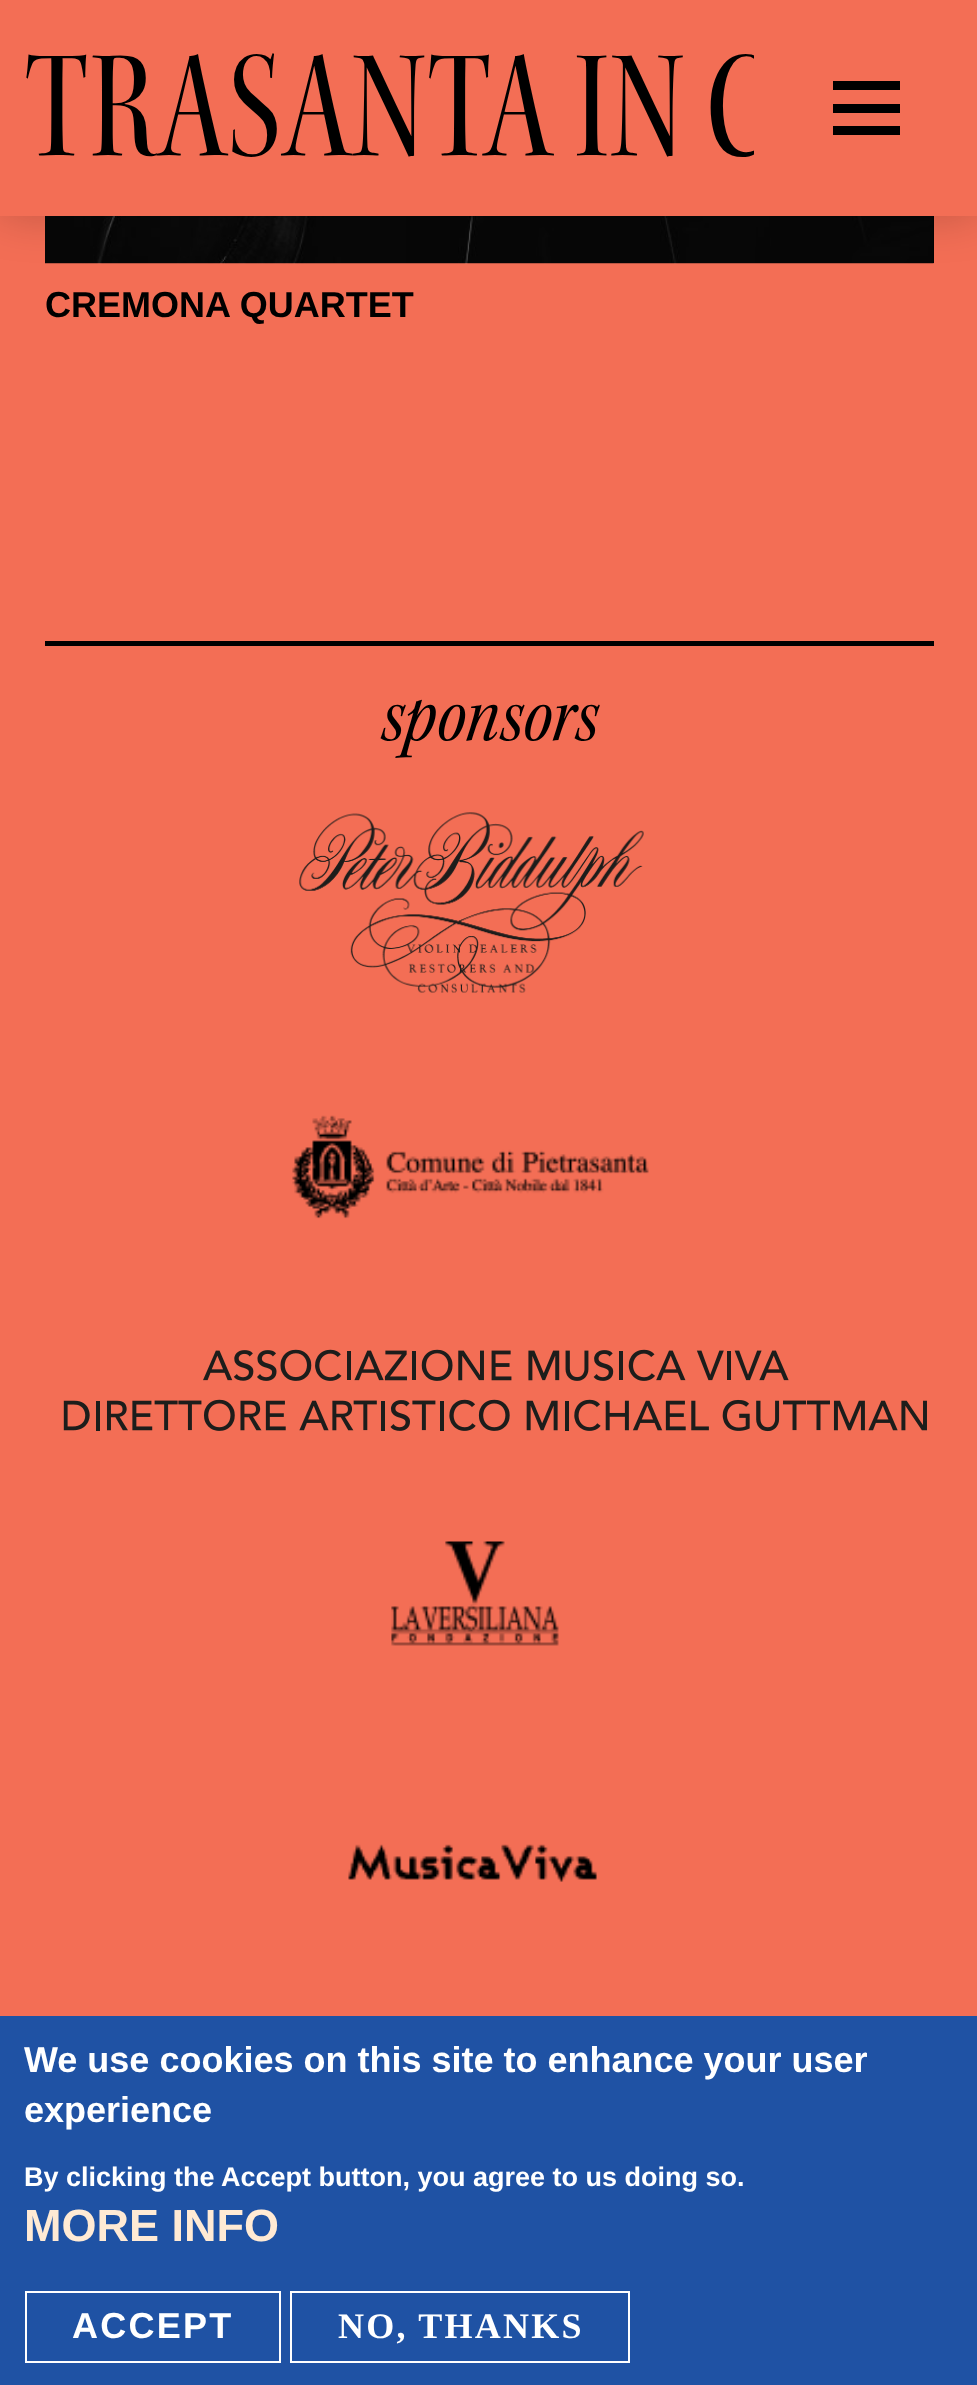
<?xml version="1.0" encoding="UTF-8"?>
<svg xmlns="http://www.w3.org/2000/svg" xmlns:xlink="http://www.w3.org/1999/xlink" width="977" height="2385">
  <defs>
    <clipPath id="clip1"><rect y="52" width="754" height="112" /></clipPath>
  </defs>
  <rect width="100%" height="100%" fill="#f36e55" />
  <rect x="933" y="216" width="1" height="47" fill="#000000" />
  <image x="45" y="216" width="889" height="48" xlink:href="image1.png" />
  <rect x="45" y="216" width="889" height="47" fill="#000000" fill-opacity="0.5" />
  <rect width="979" height="216" fill="#000000" fill-opacity="0.2" filter="blur(22.5px)" />
  <rect width="977" height="216" fill="#f36e55" />
  <rect x="833" y="104" width="67" height="9" fill="#000000" />
  <rect x="833" y="81" width="67" height="9" fill="#000000" />
  <rect x="833" y="126" width="67" height="9" fill="#000000" />
  <rect x="45" y="641" width="889" height="5" fill="#000000" />
  <image x="299" y="812" width="345" height="181" xlink:href="image2.png" />
  <image x="292" y="1115" width="357" height="104" xlink:href="image3.png" />
  <image x="63" y="1349" width="864" height="83" xlink:href="image4.png" />
  <image x="391" y="1541" width="168" height="105" xlink:href="image5.png" />
  <image x="348" y="1844" width="249" height="38" xlink:href="image6.png" />
  <rect y="2016" width="977" height="369" fill="#1f52a4" />
  <rect x="26" y="2292" width="254" height="70" fill="none" stroke="#ffffff" stroke-width="2" />
  <rect x="291" y="2292" width="338" height="70" fill="none" stroke="#ffffff" stroke-width="2" />
  <g clip-path="url(#clip1)">
    <text x="25" y="155" style="font-family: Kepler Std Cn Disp; font-size: 159.75px; letter-spacing: 1px; fill: #000000">TRASANTA IN C</text>
  </g>
  <text x="45" y="317" style="font-family: Liberation Sans; font-size: 36px; font-weight: bold; fill: #000000">CREMONA QUARTET</text>
  <text x="381" y="740" style="font-family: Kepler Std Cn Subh; font-size: 81px; font-style: italic; fill: #000000">sponsors</text>
  <text x="24" y="2072" style="font-family: Liberation Sans; font-size: 36px; font-weight: bold; fill: #ffffff">We use cookies on this site to enhance your user</text>
  <text x="24" y="2122" style="font-family: Liberation Sans; font-size: 36px; font-weight: bold; fill: #ffffff">experience</text>
  <text x="24" y="2186" style="font-family: Liberation Sans; font-size: 27px; font-weight: bold; fill: #ffffff">By clicking the Accept button, you agree to us doing so.</text>
  <text x="24" y="2241" style="font-family: Liberation Sans; font-size: 45px; font-weight: bold; fill: #ffead4">MORE INFO</text>
  <text x="72" y="2338" style="font-family: Liberation Sans; font-size: 36px; font-weight: bold; letter-spacing: 2.25px; fill: #ffffff">ACCEPT</text>
  <text x="338" y="2338" style="font-family: Liberation Serif; font-size: 36px; font-weight: bold; letter-spacing: 2.25px; fill: #ffffff">NO, THANKS</text>
</svg>
